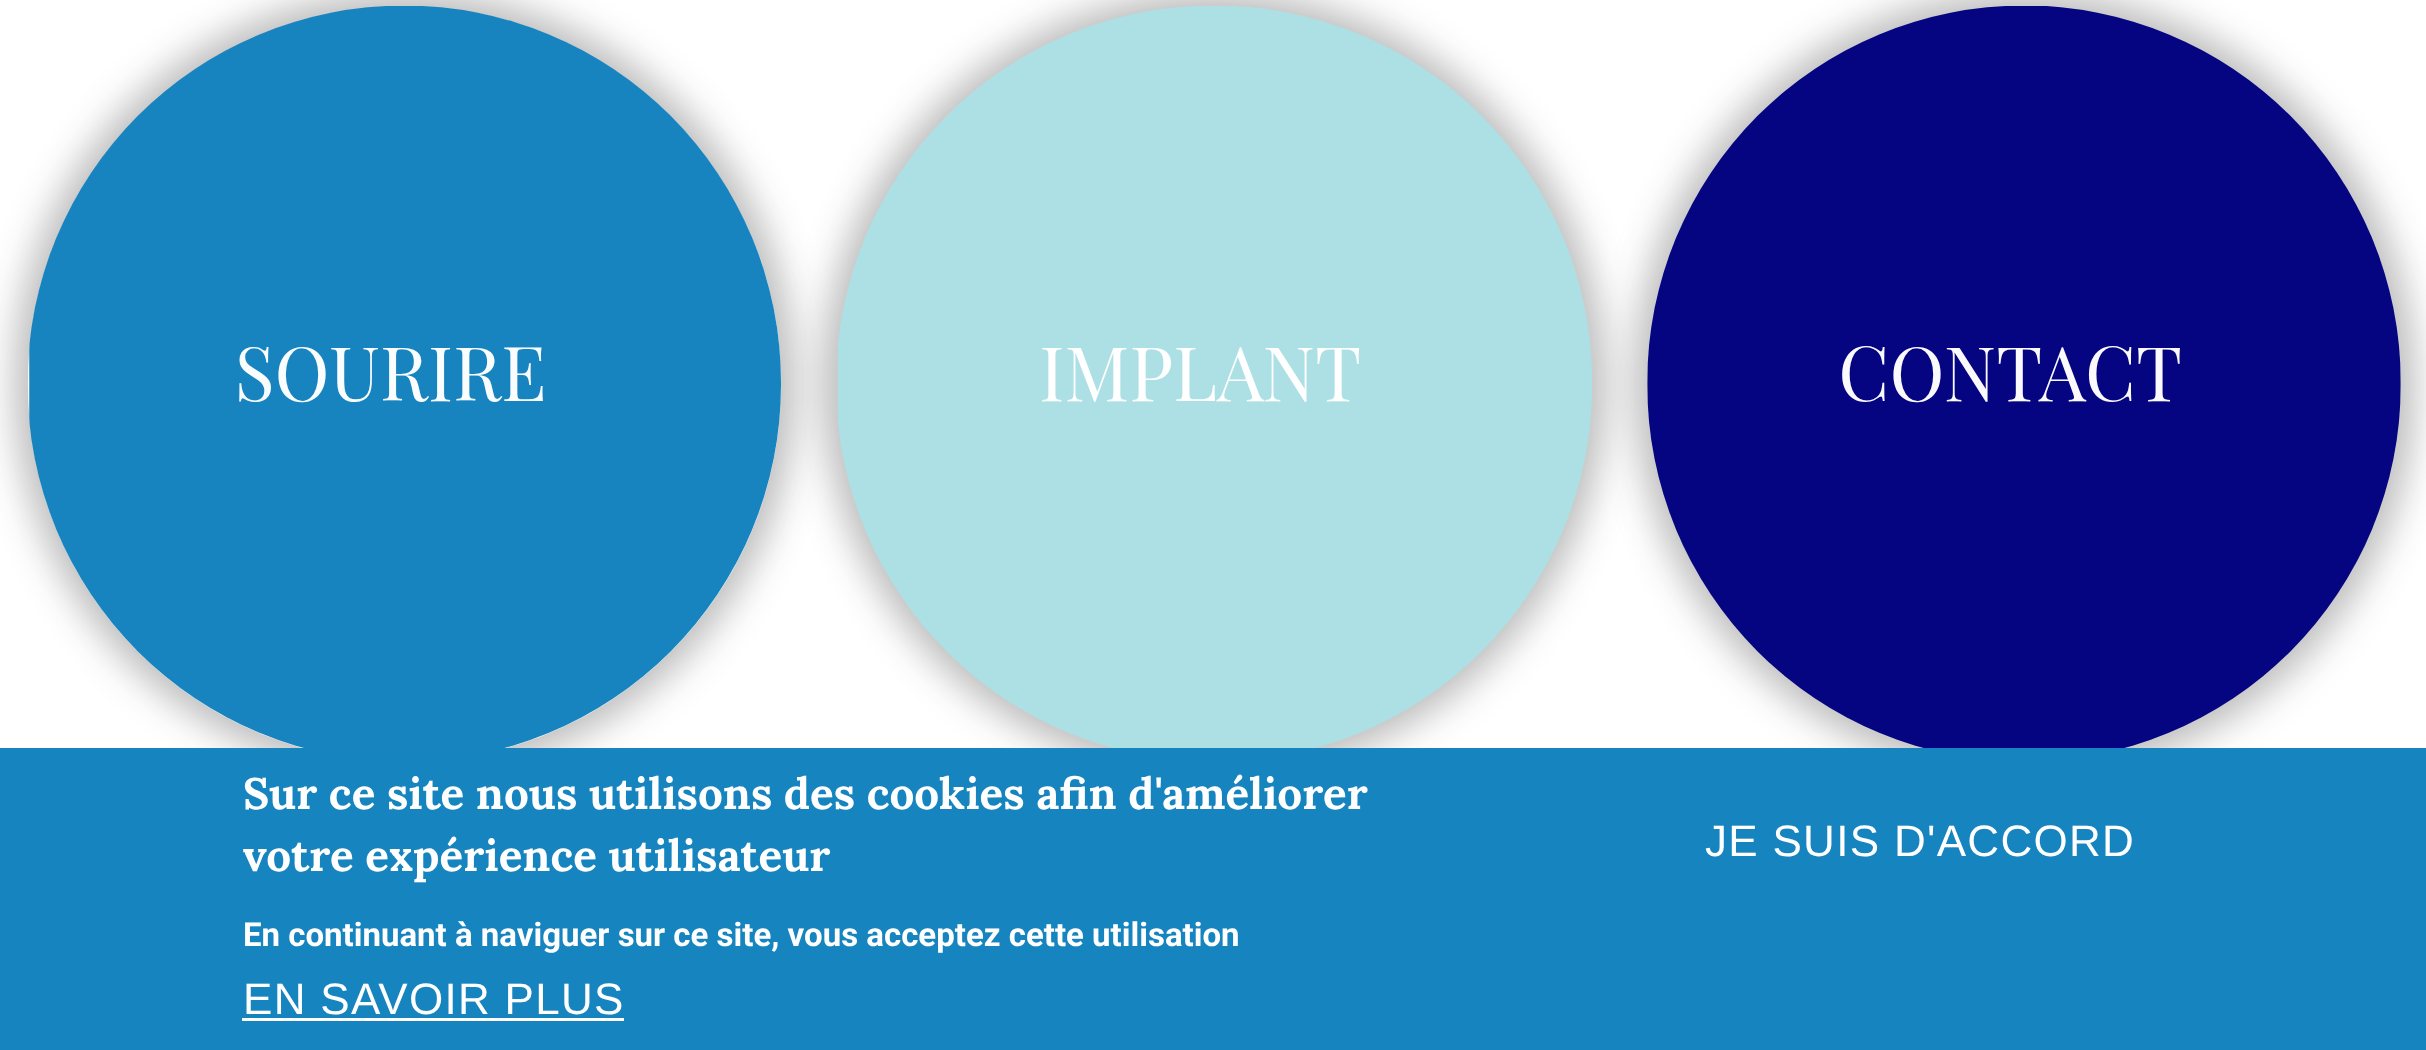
<?xml version="1.0" encoding="UTF-8"?>
<svg xmlns="http://www.w3.org/2000/svg" xmlns:xlink="http://www.w3.org/1999/xlink" width="2426" height="1050">
  <defs>
    <clipPath id="clip1"><path d="M 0 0 h 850 v 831 h -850 z m 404.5 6 c 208 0 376.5 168.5 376.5 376.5 v 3 c 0 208 -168.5 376.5 -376.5 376.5 c -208 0 -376.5 -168.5 -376.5 -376.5 v -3 c 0 -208 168.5 -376.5 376.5 -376.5 z" clip-rule="evenodd" /></clipPath>
  </defs>
  <rect width="100%" height="100%" fill="#ffffff" />
  <g clip-path="url(#clip1)">
    <rect x="14" y="-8" width="781" height="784" rx="390.5" fill="#212121" fill-opacity="0.3" filter="blur(18px)" />
  </g>
  <image x="29" y="6" width="752" height="742" xlink:href="image1.png" />
  <rect x="822" y="-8" width="784" height="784" rx="392" fill="#212121" fill-opacity="0.3" filter="blur(18px)" />
  <image x="837" y="6" width="755" height="742" xlink:href="image2.png" />
  <rect x="1634" y="-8" width="781" height="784" rx="390.5" fill="#212121" fill-opacity="0.3" filter="blur(18px)" />
  <image x="1647" y="6" width="754" height="742" xlink:href="image3.png" />
  <rect y="748" width="2426" height="302" fill="#1684bf" />
  <rect x="242" y="1018" width="382" height="3" fill="#ffffff" />
  <text x="243" y="809" style="font-family: Lora; font-size: 44px; font-weight: bold; fill: #ffffff">Sur ce site nous utilisons des cookies afin d'améliorer</text>
  <text x="243" y="871" style="font-family: Lora; font-size: 44px; font-weight: bold; fill: #ffffff">votre expérience utilisateur</text>
  <text x="243" y="946" style="font-family: Roboto; font-size: 33px; font-weight: bold; fill: #ffffff">En continuant à naviguer sur ce site, vous acceptez cette utilisation</text>
  <text x="243" y="1014" style="font-family: Liberation Sans; font-size: 44px; letter-spacing: 1.3px; fill: #ffffff">EN SAVOIR PLUS</text>
  <text x="1705" y="856" style="font-family: Liberation Sans; font-size: 44px; letter-spacing: 1.3px; fill: #ffffff">JE SUIS D'ACCORD</text>
</svg>
